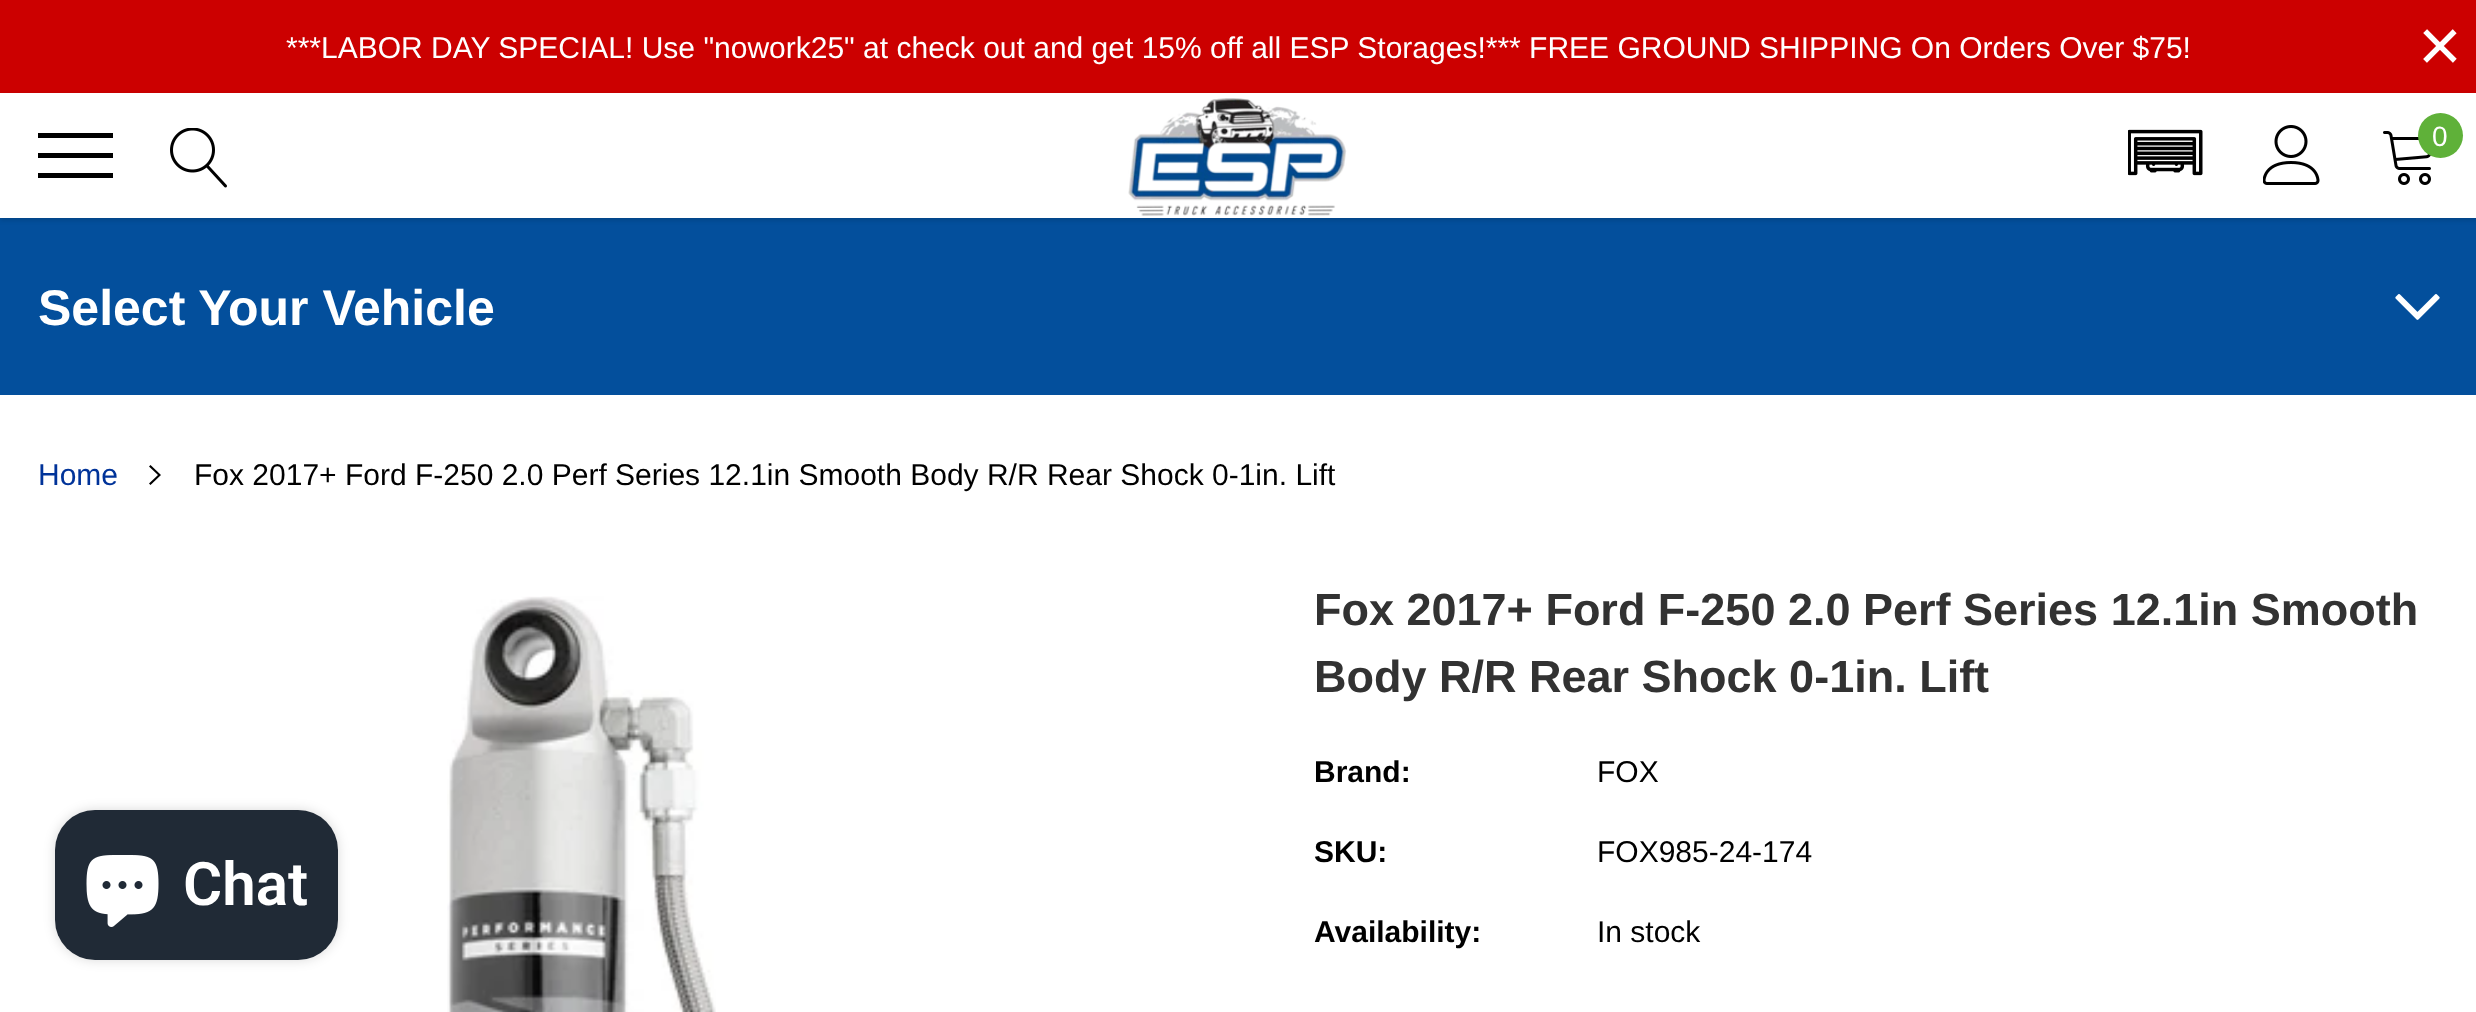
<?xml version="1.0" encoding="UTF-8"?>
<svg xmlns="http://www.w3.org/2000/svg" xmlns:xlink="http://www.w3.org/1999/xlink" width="2476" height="1012">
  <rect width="100%" height="100%" fill="#034f9c" />
  <rect width="2476" height="93" fill="#cc0000" />
  <rect y="95" width="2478" height="125" fill="#000000" fill-opacity="0.15" filter="blur(2.5px)" />
  <rect y="93" width="2476" height="125" fill="#ffffff" />
  <rect x="38" y="153" width="75" height="5" fill="#000000" />
  <rect x="38" y="133" width="75" height="5" fill="#000000" />
  <rect x="38" y="173" width="75" height="5" fill="#000000" />
  <image x="170" y="128" width="57" height="60" xlink:href="image1.png" />
  <image x="1128" y="98" width="219" height="118" xlink:href="image2.png" />
  <image x="2128" y="129" width="75" height="47" xlink:href="image3.png" />
  <image x="2263" y="125" width="57" height="60" xlink:href="image4.png" />
  <image x="2383" y="131" width="48" height="54" xlink:href="image5.png" />
  <circle cx="2440.5" cy="135.5" r="22.5" fill="#5fb139" />
  <image x="2395" y="294" width="45" height="26" xlink:href="image6.png" />
  <rect y="395" width="2476" height="617" fill="#ffffff" />
  <path d="M 150.5 465 l -1.5 1.5 l 9 8.5 l -9 8.5 l 1.5 1.5 l 10.5 -10 z" fill="#000000" />
  <image x="447" y="596" width="269" height="416" xlink:href="image7.png" />
  <rect x="55" y="810" width="283" height="150" rx="40" fill="#000000" fill-opacity="0.15" filter="blur(6px)" />
  <rect x="55" y="810" width="283" height="150" rx="40" fill="#202a36" />
  <image x="86" y="855" width="73" height="72" xlink:href="image8.png" />
  <text x="286" y="58" style="font-family: Arimo; font-size: 30px; fill: #ffffff">***LABOR DAY SPECIAL! Use "nowork25" at check out and get 15% off all ESP Storages!*** FREE GROUND SHIPPING On Orders Over $75!</text>
  <text x="2418" y="71" style="font-family: Arimo; font-size: 75px; fill: #ffffff">×</text>
  <text x="2432" y="146" style="font-family: Arimo; font-size: 28px; fill: #ffffff">0</text>
  <text x="38" y="325" style="font-family: Arimo; font-size: 50px; font-weight: bold; fill: #ffffff">Select Your Vehicle</text>
  <text x="38" y="485" style="font-family: Arimo; font-size: 30px; fill: #003399">Home</text>
  <text x="194" y="485" style="font-family: Arimo; font-size: 30px; fill: #000000">Fox 2017+ Ford F-250 2.0 Perf Series 12.1in Smooth Body R/R Rear Shock 0-1in. Lift</text>
  <text x="1314" y="625" style="font-family: Arimo; font-size: 45px; font-weight: bold; fill: #323232">Fox 2017+ Ford F-250 2.0 Perf Series 12.1in Smooth</text>
  <text x="1314" y="692" style="font-family: Arimo; font-size: 45px; font-weight: bold; fill: #323232">Body R/R Rear Shock 0-1in. Lift</text>
  <text x="1314" y="782" style="font-family: Arimo; font-size: 30px; font-weight: bold; fill: #000000">Brand:</text>
  <text x="1597" y="782" style="font-family: Arimo; font-size: 30px; fill: #000000">FOX</text>
  <text x="1314" y="862" style="font-family: Arimo; font-size: 30px; font-weight: bold; fill: #000000">SKU:</text>
  <text x="1597" y="862" style="font-family: Arimo; font-size: 30px; fill: #000000">FOX985-24-174</text>
  <text x="1314" y="942" style="font-family: Arimo; font-size: 30px; font-weight: bold; fill: #000000">Availability:</text>
  <text x="1597" y="942" style="font-family: Arimo; font-size: 30px; fill: #000000">In stock</text>
  <text x="183" y="905" style="font-family: Roboto; font-size: 60px; font-weight: 600; fill: #ffffff">Chat</text>
</svg>
